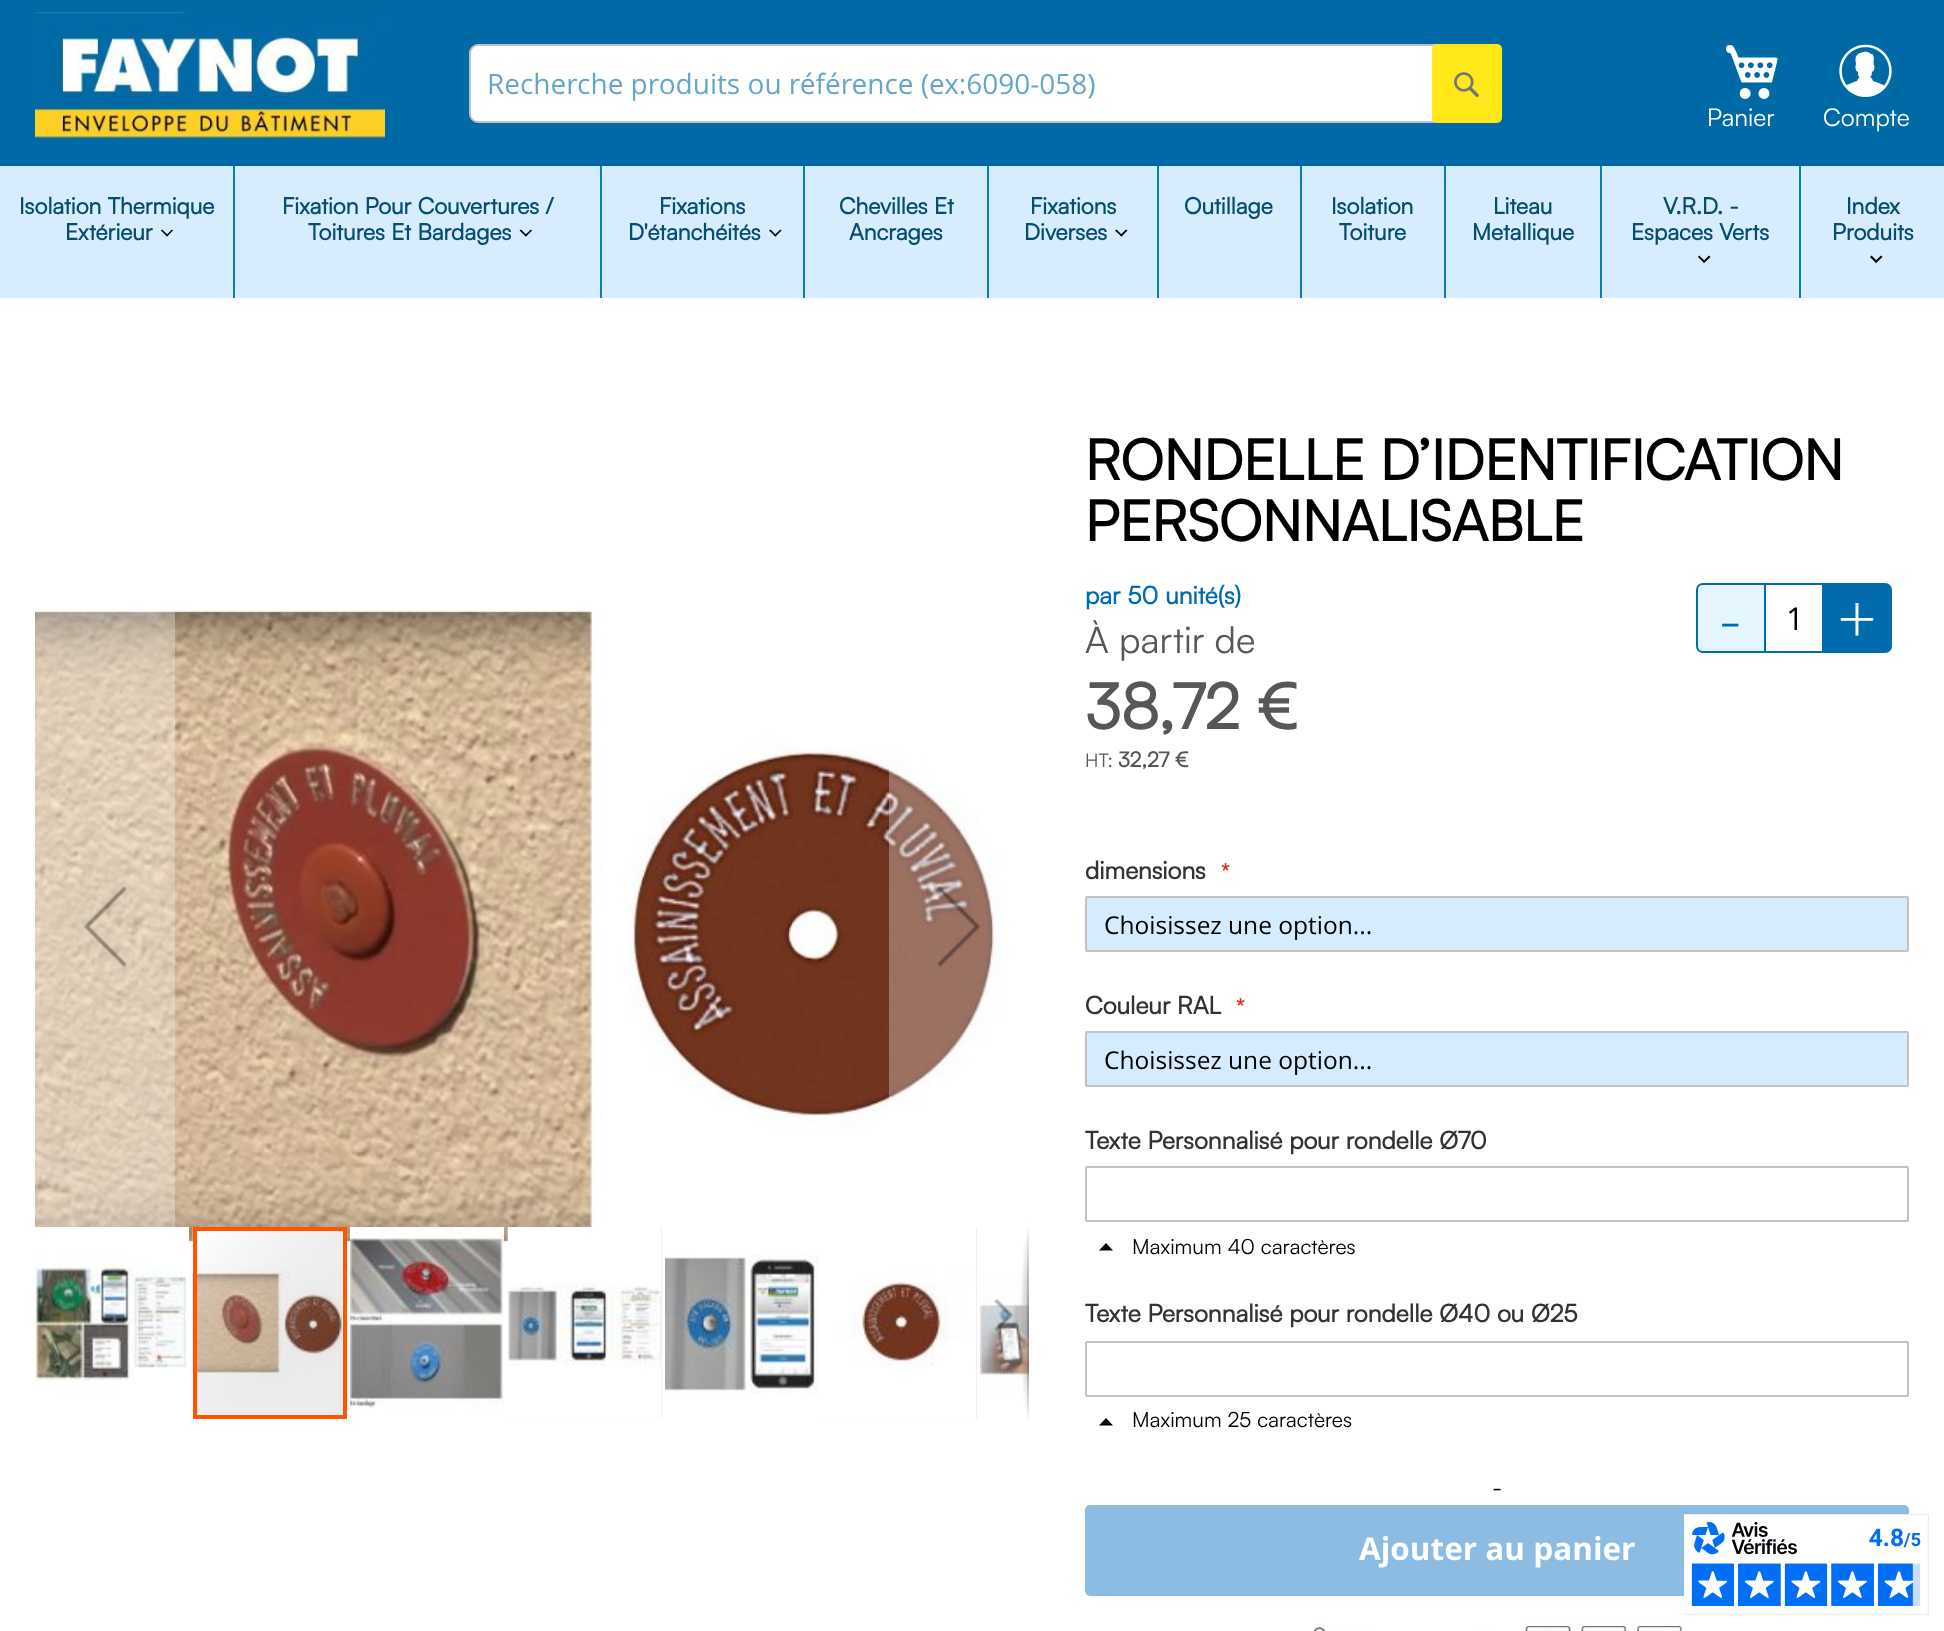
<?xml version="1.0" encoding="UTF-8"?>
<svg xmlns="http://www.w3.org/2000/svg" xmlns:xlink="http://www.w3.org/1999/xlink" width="1944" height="1631">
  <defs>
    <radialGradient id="g1" gradientUnits="userSpaceOnUse" cx="0" cy="0" r="1" gradientTransform="matrix(9 0 0 100 1029 1323)"><stop offset="0" stop-color="#000000" stop-opacity="0.4" /><stop offset="1" stop-color="#000000" stop-opacity="0" /></radialGradient>
    <linearGradient id="g2" gradientUnits="userSpaceOnUse" x1="1028" y1="1223" x2="1028" y2="1423"><stop offset="0" stop-color="#000000" stop-opacity="0" /><stop offset="0.25" stop-color="#000000" stop-opacity="0.2" /><stop offset="0.75" stop-color="#000000" stop-opacity="0.3" /><stop offset="1" stop-color="#000000" stop-opacity="0" /></linearGradient>
  </defs>
  <rect width="100%" height="100%" fill="#ffffff" />
  <rect width="1944" height="166" fill="#006aa6" />
  <image x="35" y="12" width="350" height="128" xlink:href="image1.png" />
  <rect x="470" y="45" width="1031" height="77" rx="8" fill="#ffffff" stroke="#c2c2c2" stroke-width="2" />
  <rect x="1432" y="44" width="70" height="79" rx="5" fill="#fee818" />
  <image x="1454" y="72" width="25" height="26" xlink:href="image2.png" />
  <image x="1726" y="45" width="52" height="54" xlink:href="image3.png" />
  <image x="1839" y="44" width="53" height="54" xlink:href="image4.png" />
  <rect y="166" width="1944" height="132" fill="#d7ecff" />
  <rect x="233" y="166" width="2" height="132" fill="#097fb4" />
  <path d="M 172 229.5 l 1 1 l -6 6 l -1 -1 z" fill="#000000" />
  <path d="M 162 229.5 l 6.5 6 l -1.5 1 l -6 -6 z" fill="#000000" />
  <rect x="600" y="166" width="2" height="132" fill="#097fb4" />
  <path d="M 531 229.5 l 1 1 l -6 6 l -1.5 -1 z" fill="#000000" />
  <path d="M 521 229.5 l 6 6 l -1 1 l -6.5 -6 z" fill="#000000" />
  <rect x="803" y="166" width="2" height="132" fill="#097fb4" />
  <path d="M 780.5 229.5 l 1 1 l -6 6 l -1.5 -1 z" fill="#000000" />
  <path d="M 770.5 229.5 l 6 6 l -1 1 l -6.5 -6 z" fill="#000000" />
  <rect x="987" y="166" width="2" height="132" fill="#097fb4" />
  <rect x="1157" y="166" width="2" height="132" fill="#097fb4" />
  <path d="M 1126 229.5 l 1.5 1 l -6 6 l -1.5 -1 z" fill="#000000" />
  <path d="M 1116.5 229.5 l 6 6 l -1 1 l -6.5 -6 z" fill="#000000" />
  <rect x="1300" y="166" width="2" height="132" fill="#097fb4" />
  <rect x="1444" y="166" width="2" height="132" fill="#097fb4" />
  <rect x="1600" y="166" width="2" height="132" fill="#097fb4" />
  <rect x="1799" y="166" width="2" height="132" fill="#097fb4" />
  <path d="M 1709 255.5 l 1.5 1.5 l -6.5 6 l -1 -1.5 z" fill="#000000" />
  <path d="M 1699 255.5 l 6.5 6 l -1.5 1.5 l -6 -6 z" fill="#000000" />
  <path d="M 1881 255.5 l 1.5 1.5 l -6.5 6 l -1 -1.5 z" fill="#000000" />
  <path d="M 1871.5 255.5 l 6 6 l -1.5 1.5 l -6 -6 z" fill="#000000" />
  <image x="35" y="610" width="972" height="637" xlink:href="image5.png" />
  <rect x="35" y="610" width="140" height="633" fill="#ffffff" fill-opacity="0.3" />
  <image x="83" y="886" width="44" height="81" xlink:href="image6.png" />
  <rect x="889" y="768" width="110" height="334" fill="#ffffff" fill-opacity="0.3" />
  <image x="937" y="886" width="44" height="81" xlink:href="image7.png" />
  <image x="980" y="1227" width="49" height="192" xlink:href="image14.png" />
  <rect x="1020" y="1229" width="9" height="188" fill="url(#g1)" />
  <rect x="1027" y="1223" width="2" height="200" fill="url(#g2)" />
  <image x="35" y="1227" width="154" height="192" xlink:href="image8.png" />
  <image x="192" y="1227" width="151" height="192" xlink:href="image9.png" />
  <rect x="195" y="1229" width="150" height="188" fill="none" stroke="#ff5501" stroke-width="4" />
  <image x="350" y="1227" width="154" height="192" xlink:href="image10.png" />
  <rect x="508" y="1227" width="154" height="192" fill="#ebebeb" />
  <image x="507" y="1227" width="155" height="192" xlink:href="image11.png" />
  <image x="665" y="1227" width="154" height="192" xlink:href="image12.png" />
  <rect x="823" y="1227" width="154" height="192" fill="#ebebeb" />
  <image x="823" y="1227" width="154" height="192" xlink:href="image13.png" />
  <rect x="980" y="1229" width="49" height="188" fill="#ffffff" fill-opacity="0.3" />
  <image x="994" y="1298" width="20" height="34" xlink:href="image15.png" />
  <rect x="1086" y="897" width="822" height="54" rx="1" fill="#d4ecfe" stroke="#c2c2c2" stroke-width="2" />
  <rect x="1086" y="1032" width="822" height="54" rx="1" fill="#d4ecfe" stroke="#c2c2c2" stroke-width="2" />
  <rect x="1086" y="1167" width="822" height="54" rx="1" fill="none" stroke="#c2c2c2" stroke-width="2" />
  <path d="M 1106 1243 l -7 7.5 h 14 z" fill="#000000" />
  <rect x="1086" y="1342" width="822" height="54" rx="1" fill="none" stroke="#c2c2c2" stroke-width="2" />
  <path d="M 1106 1418 l -7 7.5 h 14 z" fill="#000000" />
  <rect x="1744" y="584" width="103" height="68" fill="none" stroke="#006cad" stroke-width="2" />
  <path d="M 1703 584 h 62 v 68 h -62 c -3.5 0 -6 -2.5 -6 -6 v -56 c 0 -3.5 2.5 -6 6 -6 z" fill="#e4f5ff" stroke="#006cad" stroke-width="2" />
  <path d="M 1823 584 h 62 c 3.5 0 6 2.5 6 6 v 56 c 0 3.5 -2.5 6 -6 6 h -62 z" fill="#006cad" stroke="#006cad" stroke-width="2" />
  <rect x="1086" y="1506" width="822" height="89" rx="4" fill="#8cbce1" stroke="#8cbce1" stroke-width="2" />
  <image x="1313" y="1622" width="372" height="9" xlink:href="image16.png" />
  <image x="1684" y="1514" width="245" height="101" xlink:href="image17.png" />
  <text x="487" y="94" style="font-family: Open Sans; font-size: 28px; fill: #66a6ca">Recherche produits ou référence (ex:6090-058)</text>
  <text x="1707" y="126" style="font-family: Satoshi; font-size: 24.5px; fill: #ffffff">Panier</text>
  <text x="1823" y="126" style="font-family: Satoshi; font-size: 24.5px; fill: #ffffff">Compte</text>
  <text x="19" y="214" style="font-family: Satoshi; font-size: 22.75px; font-weight: bold; fill: #064e6f">Isolation Thermique</text>
  <text x="65" y="240" style="font-family: Satoshi; font-size: 22.75px; font-weight: bold; fill: #064e6f">Extérieur</text>
  <text x="282" y="214" style="font-family: Satoshi; font-size: 22.75px; font-weight: bold; fill: #064e6f">Fixation Pour Couvertures /</text>
  <text x="308" y="240" style="font-family: Satoshi; font-size: 22.75px; font-weight: bold; fill: #064e6f">Toitures Et Bardages</text>
  <text x="659" y="214" style="font-family: Satoshi; font-size: 22.75px; font-weight: bold; fill: #064e6f">Fixations</text>
  <text x="628" y="240" style="font-family: Satoshi; font-size: 22.75px; font-weight: bold; fill: #064e6f">D'étanchéités</text>
  <text x="839" y="214" style="font-family: Satoshi; font-size: 22.75px; font-weight: bold; fill: #064e6f">Chevilles Et</text>
  <text x="849" y="240" style="font-family: Satoshi; font-size: 22.75px; font-weight: bold; fill: #064e6f">Ancrages</text>
  <text x="1030" y="214" style="font-family: Satoshi; font-size: 22.75px; font-weight: bold; fill: #064e6f">Fixations</text>
  <text x="1024" y="240" style="font-family: Satoshi; font-size: 22.75px; font-weight: bold; fill: #064e6f">Diverses</text>
  <text x="1184" y="214" style="font-family: Satoshi; font-size: 22.75px; font-weight: bold; fill: #064e6f">Outillage</text>
  <text x="1331" y="214" style="font-family: Satoshi; font-size: 22.75px; font-weight: bold; fill: #064e6f">Isolation</text>
  <text x="1339" y="240" style="font-family: Satoshi; font-size: 22.75px; font-weight: bold; fill: #064e6f">Toiture</text>
  <text x="1493" y="214" style="font-family: Satoshi; font-size: 22.75px; font-weight: bold; fill: #064e6f">Liteau</text>
  <text x="1472" y="240" style="font-family: Satoshi; font-size: 22.75px; font-weight: bold; fill: #064e6f">Metallique</text>
  <text x="1663" y="214" style="font-family: Satoshi; font-size: 22.75px; font-weight: bold; fill: #064e6f">V.R.D. -</text>
  <text x="1631" y="240" style="font-family: Satoshi; font-size: 22.75px; font-weight: bold; fill: #064e6f">Espaces Verts</text>
  <text x="1846" y="214" style="font-family: Satoshi; font-size: 22.75px; font-weight: bold; fill: #064e6f">Index</text>
  <text x="1832" y="240" style="font-family: Satoshi; font-size: 22.75px; font-weight: bold; fill: #064e6f">Produits</text>
  <text x="1085" y="480" style="font-family: Satoshi; font-size: 56px; font-weight: bold; fill: #000000">RONDELLE D’IDENTIFICATION</text>
  <text x="1085" y="541" style="font-family: Satoshi; font-size: 56px; font-weight: bold; fill: #000000">PERSONNALISABLE</text>
  <text x="1085" y="604" style="font-family: Satoshi; font-size: 24.5px; font-weight: bold; fill: #006cad">par 50 unité(s)</text>
  <text x="1085" y="879" style="font-family: Satoshi; font-size: 24.5px; font-weight: bold; fill: #333333">dimensions</text>
  <text x="1221" y="879" style="font-family: Satoshi; font-size: 21px; font-weight: bold; fill: #e02b27">*</text>
  <text x="1104" y="934" style="font-family: Open Sans; font-size: 24.5px; fill: #000000">Choisissez une option...</text>
  <text x="1085" y="1014" style="font-family: Satoshi; font-size: 24.5px; font-weight: bold; fill: #333333">Couleur RAL</text>
  <text x="1236" y="1014" style="font-family: Satoshi; font-size: 21px; font-weight: bold; fill: #e02b27">*</text>
  <text x="1104" y="1069" style="font-family: Open Sans; font-size: 24.5px; fill: #000000">Choisissez une option...</text>
  <text x="1085" y="1149" style="font-family: Satoshi; font-size: 24.5px; font-weight: bold; fill: #333333">Texte Personnalisé pour rondelle Ø70</text>
  <text x="1132" y="1254" style="font-family: Satoshi; font-size: 21px; fill: #000000">Maximum 40 caractères</text>
  <text x="1085" y="1322" style="font-family: Satoshi; font-size: 24.5px; font-weight: bold; fill: #333333">Texte Personnalisé pour rondelle Ø40 ou Ø25</text>
  <text x="1132" y="1427" style="font-family: Satoshi; font-size: 21px; fill: #000000">Maximum 25 caractères</text>
  <text x="1719" y="644" style="font-family: Open Sans; font-size: 70px; font-weight: 300; fill: #006cad">-</text>
  <text x="1786" y="630" style="font-family: Open Sans; font-size: 31.5px; fill: #000000">1</text>
  <text x="1837" y="644" style="font-family: Open Sans; font-size: 70px; font-weight: 300; fill: #ffffff">+</text>
  <text x="1492" y="1496" style="font-family: Satoshi; font-size: 24.5px; fill: #000000">-</text>
  <text x="1359" y="1560" style="font-family: Open Sans; font-size: 31.5px; font-weight: bold; fill: #ffffff">Ajouter au panier</text>
  <text x="1085" y="653" style="font-family: Satoshi; font-size: 36.75px; fill: #575757">À partir de</text>
  <text x="1085" y="729" style="font-family: Satoshi; font-size: 63px; font-weight: bold; fill: #575757">38,72 €</text>
  <text x="1085" y="767" style="font-family: Satoshi; font-size: 19px; fill: #575757">HT:</text>
  <text x="1118" y="767" style="font-family: Satoshi; font-size: 21px; font-weight: bold; fill: #575757">32,27 €</text>
</svg>
